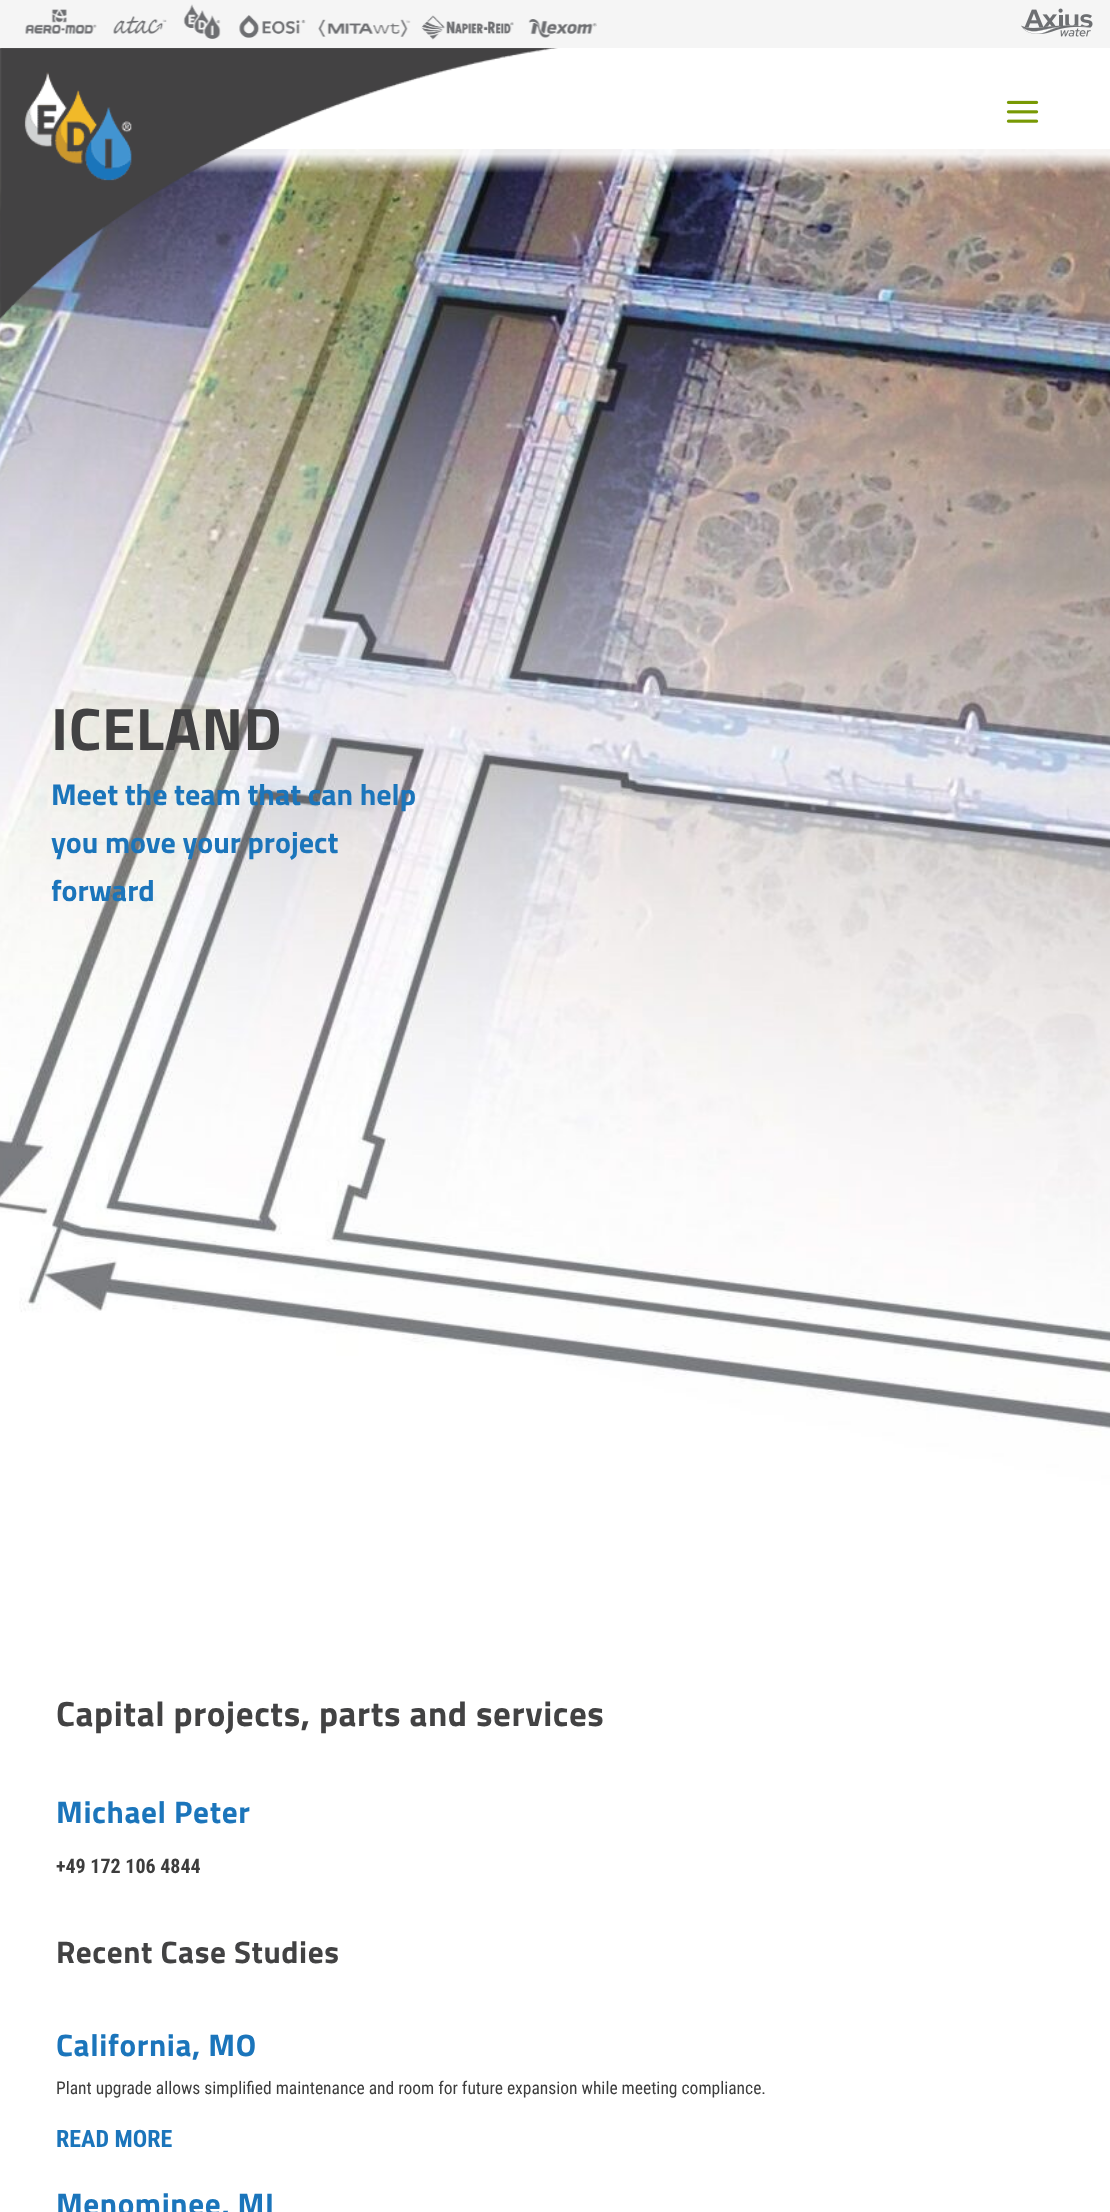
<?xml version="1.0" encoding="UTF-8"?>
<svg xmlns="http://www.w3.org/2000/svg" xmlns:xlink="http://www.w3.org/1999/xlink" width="1110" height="2212">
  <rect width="100%" height="100%" fill="#ffffff" />
  <rect width="1110" height="48" fill="#f5f5f5" />
  <image x="25" y="9" width="72" height="25" xlink:href="image1.png" />
  <image x="113" y="16" width="54" height="18" xlink:href="image2.png" />
  <image x="183" y="4" width="38" height="35" xlink:href="image3.png" />
  <image x="239" y="15" width="67" height="23" xlink:href="image4.png" />
  <image x="318" y="19" width="93" height="18" xlink:href="image5.png" />
  <image x="421" y="15" width="93" height="25" xlink:href="image6.png" />
  <image x="528" y="19" width="69" height="19" xlink:href="image7.png" />
  <image x="1021" y="8" width="72" height="29" xlink:href="image8.png" />
  <image x="0" y="149" width="1110" height="1447" xlink:href="image11.png" />
  <image x="0" y="48" width="558" height="271" xlink:href="image9.png" />
  <image x="1006" y="100" width="33" height="23" xlink:href="image10.png" />
  <text x="51" y="750" style="font-family: Titillium Web; font-size: 60px; font-weight: bold; letter-spacing: 0.6px; fill: #424243">ICELAND</text>
  <text x="51" y="805" style="font-family: Titillium Web; font-size: 30px; font-weight: bold; fill: #1b75bb">Meet the team that can help</text>
  <text x="51" y="853" style="font-family: Titillium Web; font-size: 30px; font-weight: bold; fill: #1b75bb">you move your project</text>
  <text x="51" y="901" style="font-family: Titillium Web; font-size: 30px; font-weight: bold; fill: #1b75bb">forward</text>
  <text x="56" y="1726" style="font-family: Titillium Web; font-size: 35px; font-weight: bold; letter-spacing: 0.6px; fill: #424243">Capital projects, parts and services</text>
  <text x="56" y="1823" style="font-family: Titillium Web; font-size: 31.25px; font-weight: bold; letter-spacing: 0.6px; fill: #1b75bb">Michael Peter</text>
  <text x="56" y="1873" style="font-family: Roboto Condensed; font-size: 20px; font-weight: bold; fill: #3d3d3d">+49 172 106 4844</text>
  <text x="56" y="1963" style="font-family: Titillium Web; font-size: 31.25px; font-weight: bold; letter-spacing: 0.6px; fill: #424243">Recent Case Studies</text>
  <text x="56" y="2056" style="font-family: Titillium Web; font-size: 31.25px; font-weight: bold; letter-spacing: 0.6px; fill: #1b75bb">California, MO</text>
  <text x="56" y="2094" style="font-family: Roboto Condensed; font-size: 17.5px; fill: #3d3d3d">Plant upgrade allows simplified maintenance and room for future expansion while meeting compliance.</text>
  <text x="56" y="2147" style="font-family: Roboto Condensed; font-size: 24px; font-weight: bold; fill: #1b75bb">READ MORE</text>
  <text x="56" y="2215" style="font-family: Titillium Web; font-size: 31.25px; font-weight: bold; letter-spacing: 0.6px; fill: #1b75bb">Menominee, MI</text>
</svg>
